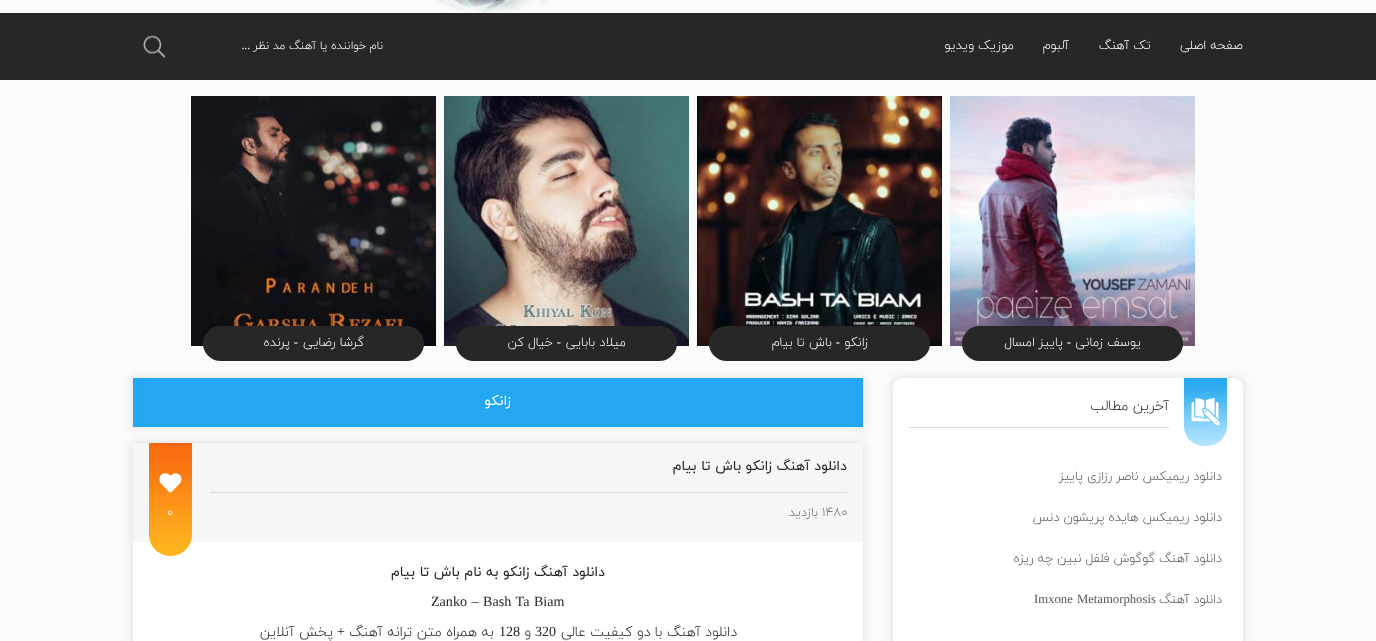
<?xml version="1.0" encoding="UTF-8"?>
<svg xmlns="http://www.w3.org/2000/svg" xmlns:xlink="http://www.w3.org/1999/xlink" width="1376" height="641">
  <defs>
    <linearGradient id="g1" gradientUnits="userSpaceOnUse" x1="1206" y1="378" x2="1206" y2="446"><stop offset="0" stop-color="#23a7f0" /><stop offset="0.14" stop-color="#31adf2" /><stop offset="0.27" stop-color="#43b5f3" /><stop offset="0.64" stop-color="#85d0f9" /><stop offset="0.8" stop-color="#9ddbfd" /><stop offset="1" stop-color="#b3e4ff" /></linearGradient>
    <linearGradient id="g2" gradientUnits="userSpaceOnUse" x1="171" y1="443" x2="171" y2="556"><stop offset="0" stop-color="#f9690e" /><stop offset="0.25" stop-color="#fa7911" /><stop offset="0.73" stop-color="#fda61b" /><stop offset="1" stop-color="#ffb61e" /><stop offset="1" stop-color="#474747" /></linearGradient>
  </defs>
  <rect width="100%" height="100%" fill="#fbfbfb" />
  <image x="434" y="0" width="114" height="13" xlink:href="image1.png" />
  <rect y="13" width="1376" height="67" fill="#272727" />
  <image x="143" y="35" width="23" height="23" xlink:href="image2.png" />
  <image x="950" y="96" width="245" height="250" xlink:href="image3.png" />
  <rect x="962" y="326" width="221" height="35" rx="17.5" fill="#272727" />
  <image x="697" y="96" width="245" height="250" xlink:href="image4.png" />
  <rect x="709" y="326" width="221" height="35" rx="17.5" fill="#272727" />
  <image x="444" y="96" width="245" height="250" xlink:href="image5.png" />
  <rect x="456" y="326" width="221" height="35" rx="17.5" fill="#272727" />
  <image x="191" y="96" width="245" height="250" xlink:href="image6.png" />
  <rect x="203" y="326" width="221" height="35" rx="17.5" fill="#272727" />
  <rect x="892" y="377" width="352" height="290" rx="11" fill="#dfe0e0" filter="blur(5px)" />
  <rect x="893" y="378" width="350" height="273" rx="10" fill="#ffffff" />
  <path d="M 1184 378 h 43 v 48 c 0 11 -9 20 -20 20 h -3 c -11 0 -20 -9 -20 -20 z" fill="url(#g1)" />
  <image x="1191" y="398" width="29" height="28" xlink:href="image7.png" />
  <rect x="909" y="427" width="260" height="1" fill="#dbdbdb" />
  <rect x="132" y="377" width="732" height="51" fill="#dfe0e0" filter="blur(5px)" />
  <rect x="133" y="378" width="730" height="49" fill="#22a7f0" />
  <rect x="132" y="442" width="732" height="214" fill="#dfe0e0" filter="blur(5px)" />
  <rect x="133" y="542" width="730" height="99" fill="#ffffff" />
  <rect x="133" y="443" width="730" height="99" fill="#f6f6f6" />
  <rect x="210" y="492" width="637" height="1" fill="#dbdbdb" />
  <path d="M 149 443 h 43 v 91.5 c 0 12 -9.5 21.5 -21.5 21.5 c -12 0 -21.5 -9.5 -21.5 -21.5 z" fill="url(#g2)" />
  <image x="159" y="473" width="23" height="20" xlink:href="image8.png" />
  <text x="1243" y="49" style="font-family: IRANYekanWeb; font-size: 12.75px; font-weight: 300; direction: rtl; fill: #ffffff">صفحه اصلی</text>
  <text x="1151" y="49" style="font-family: IRANYekanWeb; font-size: 12.75px; font-weight: 300; direction: rtl; fill: #ffffff">تک آهنگ</text>
  <text x="1069" y="49" style="font-family: IRANYekanWeb; font-size: 12.75px; font-weight: 300; direction: rtl; fill: #ffffff">آلبوم</text>
  <text x="1014" y="49" style="font-family: IRANYekanWeb; font-size: 12.75px; font-weight: 300; direction: rtl; fill: #ffffff">موزیک ویدیو</text>
  <text x="383" y="49" style="font-family: IRANYekanWeb; font-size: 11.5px; font-weight: 300; direction: rtl; fill: #ffffff">نام خواننده یا آهنگ مد نظر</text>
  <text x="250" y="49" style="font-family: Liberation Serif; font-size: 11.5px; direction: rtl; fill: #ffffff">...</text>
  <text x="1141" y="346" style="font-family: IRANYekanWeb; font-size: 12.75px; font-weight: 300; direction: rtl; fill: #ffffff">یوسف زمانی</text>
  <text x="1071" y="346" style="font-family: Liberation Serif; font-size: 12.75px; direction: rtl; fill: #ffffff">-</text>
  <text x="1063" y="346" style="font-family: IRANYekanWeb; font-size: 12.75px; font-weight: 300; direction: rtl; fill: #ffffff">پاییز امسال</text>
  <text x="868" y="346" style="font-family: IRANYekanWeb; font-size: 12.75px; font-weight: 300; direction: rtl; fill: #ffffff">زانکو</text>
  <text x="840" y="346" style="font-family: Liberation Serif; font-size: 12.75px; direction: rtl; fill: #ffffff">-</text>
  <text x="832" y="346" style="font-family: IRANYekanWeb; font-size: 12.75px; font-weight: 300; direction: rtl; fill: #ffffff">باش تا بیام</text>
  <text x="626" y="346" style="font-family: IRANYekanWeb; font-size: 12.75px; font-weight: 300; direction: rtl; fill: #ffffff">میلاد بابایی</text>
  <text x="561" y="346" style="font-family: Liberation Serif; font-size: 12.75px; direction: rtl; fill: #ffffff">-</text>
  <text x="553" y="346" style="font-family: IRANYekanWeb; font-size: 12.75px; font-weight: 300; direction: rtl; fill: #ffffff">خیال کن</text>
  <text x="364" y="346" style="font-family: IRANYekanWeb; font-size: 12.75px; font-weight: 300; direction: rtl; fill: #ffffff">گرشا رضایی</text>
  <text x="298" y="346" style="font-family: Liberation Serif; font-size: 12.75px; direction: rtl; fill: #ffffff">-</text>
  <text x="290" y="346" style="font-family: IRANYekanWeb; font-size: 12.75px; font-weight: 300; direction: rtl; fill: #ffffff">پرنده</text>
  <text x="1169" y="410" style="font-family: IRANYekanWeb; font-size: 14.1px; font-weight: 300; direction: rtl; fill: #212529">آخرین مطالب</text>
  <text x="1222" y="480" style="font-family: IRANYekanWeb; font-size: 12.7px; font-weight: 300; direction: rtl; fill: #555555">دانلود ریمیکس ناصر رزازی پاییز</text>
  <text x="1222" y="521" style="font-family: IRANYekanWeb; font-size: 12.7px; font-weight: 300; direction: rtl; fill: #555555">دانلود ریمیکس هایده پریشون دنس</text>
  <text x="1222" y="562" style="font-family: IRANYekanWeb; font-size: 12.7px; font-weight: 300; direction: rtl; fill: #555555">دانلود آهنگ گوگوش فلفل نبین چه ریزه</text>
  <text x="1222" y="603" style="font-family: IRANYekanWeb; font-size: 12.7px; font-weight: 300; direction: rtl; fill: #555555">دانلود آهنگ</text>
  <text x="1034" y="603" word-spacing="1" style="font-family: Liberation Serif; font-size: 12.7px; fill: #555555">Imxone Metamorphosis</text>
  <text x="511" y="405" style="font-family: IRANYekanWeb; font-size: 14.1px; direction: rtl; fill: #ffffff">زانکو</text>
  <text x="847" y="470" style="font-family: IRANYekanWeb; font-size: 14px; direction: rtl; fill: #272727">دانلود آهنگ زانکو باش تا بیام</text>
  <text x="822" y="516" style="font-family: IRANYekanWeb; font-size: 12.7px; font-weight: 300; fill: #6f6f6f">۱۴۸۰</text>
  <text x="818" y="516" style="font-family: IRANYekanWeb; font-size: 12.7px; font-weight: 300; direction: rtl; fill: #6f6f6f">بازدید</text>
  <text x="167" y="516" style="font-family: IRANYekanWeb; font-size: 12.7px; font-weight: 300; fill: #ffffff">۰</text>
  <text x="605" y="576" style="font-family: IRANYekanWeb; font-size: 14.1px; direction: rtl; fill: #212529">دانلود آهنگ زانکو به نام باش تا بیام</text>
  <text x="431" y="606" word-spacing="1" style="font-family: Liberation Serif; font-size: 14.1px; fill: #212529">Zanko – Bash Ta Biam</text>
  <text x="737" y="636" style="font-family: IRANYekanWeb; font-size: 14.1px; font-weight: 300; direction: rtl; fill: #212529">دانلود آهنگ با دو کيفيت عالي</text>
  <text x="535" y="636" style="font-family: Liberation Serif; font-size: 14.1px; fill: #212529">320</text>
  <text x="531" y="636" style="font-family: IRANYekanWeb; font-size: 14.1px; font-weight: 300; direction: rtl; fill: #212529">و</text>
  <text x="499" y="636" style="font-family: Liberation Serif; font-size: 14.1px; fill: #212529">128</text>
  <text x="494" y="636" style="font-family: IRANYekanWeb; font-size: 14.1px; font-weight: 300; direction: rtl; fill: #212529">به همراه متن ترانه آهنگ</text>
  <text x="345" y="636" style="font-family: Liberation Serif; font-size: 14.1px; direction: rtl; fill: #212529">+</text>
  <text x="333" y="636" style="font-family: IRANYekanWeb; font-size: 14.1px; font-weight: 300; direction: rtl; fill: #212529">پخش آنلاين</text>
</svg>
